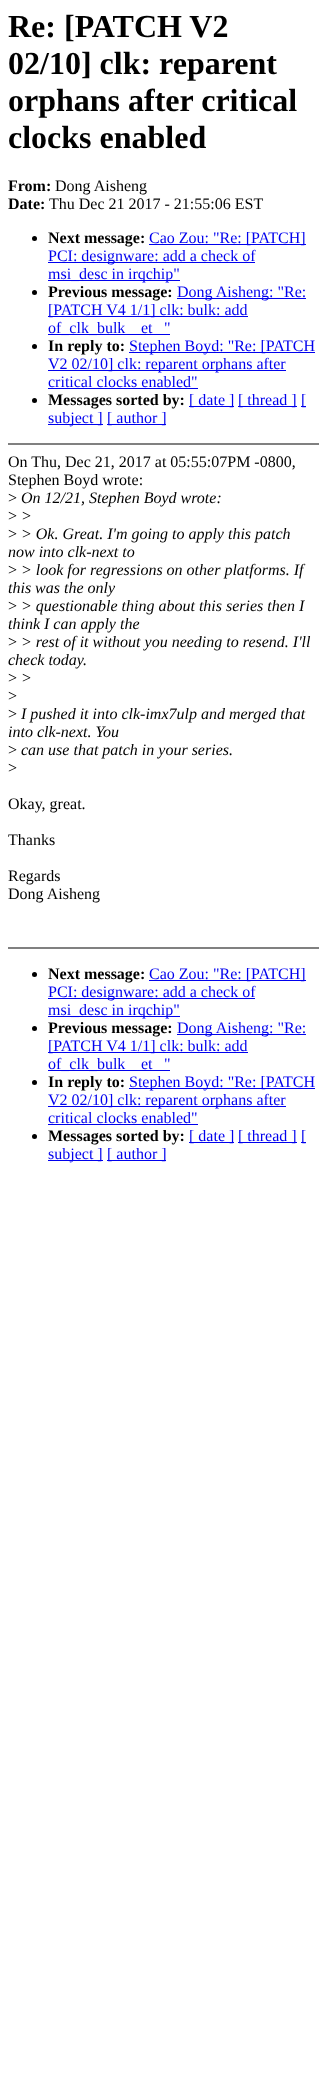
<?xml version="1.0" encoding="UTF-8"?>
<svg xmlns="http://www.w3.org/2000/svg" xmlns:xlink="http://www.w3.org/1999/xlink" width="327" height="2099">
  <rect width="100%" height="100%" fill="#ffffff" />
  <circle cx="34.5" cy="238.5" r="2.5" fill="#000000" />
  <rect x="149" y="244" width="157" height="1" fill="#0000ee" />
  <rect x="48" y="262" width="207" height="1" fill="#0000ee" />
  <rect x="48" y="280" width="132" height="1" fill="#0000ee" />
  <circle cx="34.5" cy="292.5" r="2.5" fill="#000000" />
  <rect x="177" y="298" width="129" height="1" fill="#0000ee" />
  <rect x="48" y="316" width="200" height="1" fill="#0000ee" />
  <rect x="48" y="334" width="122" height="1" fill="#0000ee" />
  <circle cx="34.5" cy="346.5" r="2.5" fill="#000000" />
  <rect x="129" y="352" width="186" height="1" fill="#0000ee" />
  <rect x="48" y="370" width="238" height="1" fill="#0000ee" />
  <rect x="48" y="388" width="150" height="1" fill="#0000ee" />
  <circle cx="34.5" cy="400.5" r="2.5" fill="#000000" />
  <rect x="189" y="406" width="45" height="1" fill="#0000ee" />
  <rect x="238" y="406" width="59" height="1" fill="#0000ee" />
  <rect x="301" y="406" width="5" height="1" fill="#0000ee" />
  <rect x="48" y="424" width="55" height="1" fill="#0000ee" />
  <rect x="107" y="424" width="59" height="1" fill="#0000ee" />
  <rect x="8" y="443" width="311" height="2" fill="#808080" />
  <rect x="8" y="947" width="311" height="2" fill="#808080" />
  <circle cx="34.5" cy="974.5" r="2.5" fill="#000000" />
  <rect x="149" y="980" width="157" height="1" fill="#0000ee" />
  <rect x="48" y="998" width="207" height="1" fill="#0000ee" />
  <rect x="48" y="1016" width="132" height="1" fill="#0000ee" />
  <circle cx="34.5" cy="1028.5" r="2.5" fill="#000000" />
  <rect x="177" y="1034" width="129" height="1" fill="#0000ee" />
  <rect x="48" y="1052" width="200" height="1" fill="#0000ee" />
  <rect x="48" y="1070" width="122" height="1" fill="#0000ee" />
  <circle cx="34.5" cy="1082.5" r="2.5" fill="#000000" />
  <rect x="129" y="1088" width="186" height="1" fill="#0000ee" />
  <rect x="48" y="1106" width="238" height="1" fill="#0000ee" />
  <rect x="48" y="1124" width="150" height="1" fill="#0000ee" />
  <circle cx="34.5" cy="1136.5" r="2.5" fill="#000000" />
  <rect x="189" y="1142" width="45" height="1" fill="#0000ee" />
  <rect x="238" y="1142" width="59" height="1" fill="#0000ee" />
  <rect x="301" y="1142" width="5" height="1" fill="#0000ee" />
  <rect x="48" y="1160" width="55" height="1" fill="#0000ee" />
  <rect x="107" y="1160" width="59" height="1" fill="#0000ee" />
  <text x="8" y="37" style="font-family: Liberation Serif; font-size: 32px; font-weight: bold; fill: #000000">Re: [PATCH V2</text>
  <text x="8" y="74" style="font-family: Liberation Serif; font-size: 32px; font-weight: bold; fill: #000000">02/10] clk: reparent</text>
  <text x="8" y="111" style="font-family: Liberation Serif; font-size: 32px; font-weight: bold; fill: #000000">orphans after critical</text>
  <text x="8" y="148" style="font-family: Liberation Serif; font-size: 32px; font-weight: bold; fill: #000000">clocks enabled</text>
  <text x="8" y="191" style="font-family: Liberation Serif; font-size: 16px; font-weight: bold; fill: #000000">From:</text>
  <text x="55" y="191" style="font-family: Liberation Serif; font-size: 16px; fill: #000000">Dong Aisheng</text>
  <text x="8" y="209" style="font-family: Liberation Serif; font-size: 16px; font-weight: bold; fill: #000000">Date:</text>
  <text x="49" y="209" style="font-family: Liberation Serif; font-size: 16px; fill: #000000">Thu Dec 21 2017 - 21:55:06 EST</text>
  <text x="48" y="243" style="font-family: Liberation Serif; font-size: 16px; font-weight: bold; fill: #000000">Next message:</text>
  <text x="149" y="243" style="font-family: Liberation Serif; font-size: 16px; fill: #0000ee">Cao Zou: "Re: [PATCH]</text>
  <text x="48" y="261" style="font-family: Liberation Serif; font-size: 16px; fill: #0000ee">PCI: designware: add a check of</text>
  <text x="48" y="279" style="font-family: Liberation Serif; font-size: 16px; fill: #0000ee">msi_desc in irqchip"</text>
  <text x="48" y="297" style="font-family: Liberation Serif; font-size: 16px; font-weight: bold; fill: #000000">Previous message:</text>
  <text x="177" y="297" style="font-family: Liberation Serif; font-size: 16px; fill: #0000ee">Dong Aisheng: "Re:</text>
  <text x="48" y="315" style="font-family: Liberation Serif; font-size: 16px; fill: #0000ee">[PATCH V4 1/1] clk: bulk: add</text>
  <text x="48" y="333" style="font-family: Liberation Serif; font-size: 16px; fill: #0000ee">of_clk_bulk</text>
  <text x="141" y="333" style="font-family: Liberation Serif; font-size: 16px; fill: #0000ee">et</text>
  <text x="164" y="333" style="font-family: Liberation Serif; font-size: 16px; fill: #0000ee">"</text>
  <text x="48" y="351" style="font-family: Liberation Serif; font-size: 16px; font-weight: bold; fill: #000000">In reply to:</text>
  <text x="129" y="351" style="font-family: Liberation Serif; font-size: 16px; fill: #0000ee">Stephen Boyd: "Re: [PATCH</text>
  <text x="48" y="369" style="font-family: Liberation Serif; font-size: 16px; fill: #0000ee">V2 02/10] clk: reparent orphans after</text>
  <text x="48" y="387" style="font-family: Liberation Serif; font-size: 16px; fill: #0000ee">critical clocks enabled"</text>
  <text x="48" y="405" style="font-family: Liberation Serif; font-size: 16px; font-weight: bold; fill: #000000">Messages sorted by:</text>
  <text x="189" y="405" style="font-family: Liberation Serif; font-size: 16px; fill: #0000ee">[ date ]</text>
  <text x="238" y="405" style="font-family: Liberation Serif; font-size: 16px; fill: #0000ee">[ thread ]</text>
  <text x="301" y="405" style="font-family: Liberation Serif; font-size: 16px; fill: #0000ee">[</text>
  <text x="48" y="423" style="font-family: Liberation Serif; font-size: 16px; fill: #0000ee">subject ]</text>
  <text x="107" y="423" style="font-family: Liberation Serif; font-size: 16px; fill: #0000ee">[ author ]</text>
  <text x="8" y="467" style="font-family: Liberation Serif; font-size: 16px; fill: #000000">On Thu, Dec 21, 2017 at 05:55:07PM -0800,</text>
  <text x="8" y="485" style="font-family: Liberation Serif; font-size: 16px; fill: #000000">Stephen Boyd wrote:</text>
  <text x="8" y="503" style="font-family: Liberation Serif; font-size: 16px; fill: #000000">&gt;</text>
  <text x="21" y="503" style="font-family: Liberation Serif; font-size: 16px; font-style: italic; fill: #000000">On 12/21, Stephen Boyd wrote:</text>
  <text x="8" y="521" style="font-family: Liberation Serif; font-size: 16px; fill: #000000">&gt;</text>
  <text x="21" y="521" style="font-family: Liberation Serif; font-size: 16px; font-style: italic; fill: #000000">&gt;</text>
  <text x="8" y="539" style="font-family: Liberation Serif; font-size: 16px; fill: #000000">&gt;</text>
  <text x="21" y="539" style="font-family: Liberation Serif; font-size: 16px; font-style: italic; fill: #000000">&gt; Ok. Great. I'm going to apply this patch</text>
  <text x="8" y="557" style="font-family: Liberation Serif; font-size: 16px; font-style: italic; fill: #000000">now into clk-next to</text>
  <text x="8" y="575" style="font-family: Liberation Serif; font-size: 16px; fill: #000000">&gt;</text>
  <text x="21" y="575" style="font-family: Liberation Serif; font-size: 16px; font-style: italic; fill: #000000">&gt; look for regressions on other platforms. If</text>
  <text x="8" y="593" style="font-family: Liberation Serif; font-size: 16px; font-style: italic; fill: #000000">this was the only</text>
  <text x="8" y="611" style="font-family: Liberation Serif; font-size: 16px; fill: #000000">&gt;</text>
  <text x="21" y="611" style="font-family: Liberation Serif; font-size: 16px; font-style: italic; fill: #000000">&gt; questionable thing about this series then I</text>
  <text x="8" y="629" style="font-family: Liberation Serif; font-size: 16px; font-style: italic; fill: #000000">think I can apply the</text>
  <text x="8" y="647" style="font-family: Liberation Serif; font-size: 16px; fill: #000000">&gt;</text>
  <text x="21" y="647" style="font-family: Liberation Serif; font-size: 16px; font-style: italic; fill: #000000">&gt; rest of it without you needing to resend. I'll</text>
  <text x="8" y="665" style="font-family: Liberation Serif; font-size: 16px; font-style: italic; fill: #000000">check today.</text>
  <text x="8" y="683" style="font-family: Liberation Serif; font-size: 16px; fill: #000000">&gt;</text>
  <text x="21" y="683" style="font-family: Liberation Serif; font-size: 16px; font-style: italic; fill: #000000">&gt;</text>
  <text x="8" y="701" style="font-family: Liberation Serif; font-size: 16px; fill: #000000">&gt;</text>
  <text x="8" y="719" style="font-family: Liberation Serif; font-size: 16px; fill: #000000">&gt;</text>
  <text x="21" y="719" style="font-family: Liberation Serif; font-size: 16px; font-style: italic; fill: #000000">I pushed it into clk-imx7ulp and merged that</text>
  <text x="8" y="737" style="font-family: Liberation Serif; font-size: 16px; font-style: italic; fill: #000000">into clk-next. You</text>
  <text x="8" y="755" style="font-family: Liberation Serif; font-size: 16px; fill: #000000">&gt;</text>
  <text x="21" y="755" style="font-family: Liberation Serif; font-size: 16px; font-style: italic; fill: #000000">can use that patch in your series.</text>
  <text x="8" y="773" style="font-family: Liberation Serif; font-size: 16px; fill: #000000">&gt;</text>
  <text x="8" y="809" style="font-family: Liberation Serif; font-size: 16px; fill: #000000">Okay, great.</text>
  <text x="8" y="845" style="font-family: Liberation Serif; font-size: 16px; fill: #000000">Thanks</text>
  <text x="8" y="881" style="font-family: Liberation Serif; font-size: 16px; fill: #000000">Regards</text>
  <text x="8" y="899" style="font-family: Liberation Serif; font-size: 16px; fill: #000000">Dong Aisheng</text>
  <text x="48" y="979" style="font-family: Liberation Serif; font-size: 16px; font-weight: bold; fill: #000000">Next message:</text>
  <text x="149" y="979" style="font-family: Liberation Serif; font-size: 16px; fill: #0000ee">Cao Zou: "Re: [PATCH]</text>
  <text x="48" y="997" style="font-family: Liberation Serif; font-size: 16px; fill: #0000ee">PCI: designware: add a check of</text>
  <text x="48" y="1015" style="font-family: Liberation Serif; font-size: 16px; fill: #0000ee">msi_desc in irqchip"</text>
  <text x="48" y="1033" style="font-family: Liberation Serif; font-size: 16px; font-weight: bold; fill: #000000">Previous message:</text>
  <text x="177" y="1033" style="font-family: Liberation Serif; font-size: 16px; fill: #0000ee">Dong Aisheng: "Re:</text>
  <text x="48" y="1051" style="font-family: Liberation Serif; font-size: 16px; fill: #0000ee">[PATCH V4 1/1] clk: bulk: add</text>
  <text x="48" y="1069" style="font-family: Liberation Serif; font-size: 16px; fill: #0000ee">of_clk_bulk</text>
  <text x="141" y="1069" style="font-family: Liberation Serif; font-size: 16px; fill: #0000ee">et</text>
  <text x="164" y="1069" style="font-family: Liberation Serif; font-size: 16px; fill: #0000ee">"</text>
  <text x="48" y="1087" style="font-family: Liberation Serif; font-size: 16px; font-weight: bold; fill: #000000">In reply to:</text>
  <text x="129" y="1087" style="font-family: Liberation Serif; font-size: 16px; fill: #0000ee">Stephen Boyd: "Re: [PATCH</text>
  <text x="48" y="1105" style="font-family: Liberation Serif; font-size: 16px; fill: #0000ee">V2 02/10] clk: reparent orphans after</text>
  <text x="48" y="1123" style="font-family: Liberation Serif; font-size: 16px; fill: #0000ee">critical clocks enabled"</text>
  <text x="48" y="1141" style="font-family: Liberation Serif; font-size: 16px; font-weight: bold; fill: #000000">Messages sorted by:</text>
  <text x="189" y="1141" style="font-family: Liberation Serif; font-size: 16px; fill: #0000ee">[ date ]</text>
  <text x="238" y="1141" style="font-family: Liberation Serif; font-size: 16px; fill: #0000ee">[ thread ]</text>
  <text x="301" y="1141" style="font-family: Liberation Serif; font-size: 16px; fill: #0000ee">[</text>
  <text x="48" y="1159" style="font-family: Liberation Serif; font-size: 16px; fill: #0000ee">subject ]</text>
  <text x="107" y="1159" style="font-family: Liberation Serif; font-size: 16px; fill: #0000ee">[ author ]</text>
</svg>
